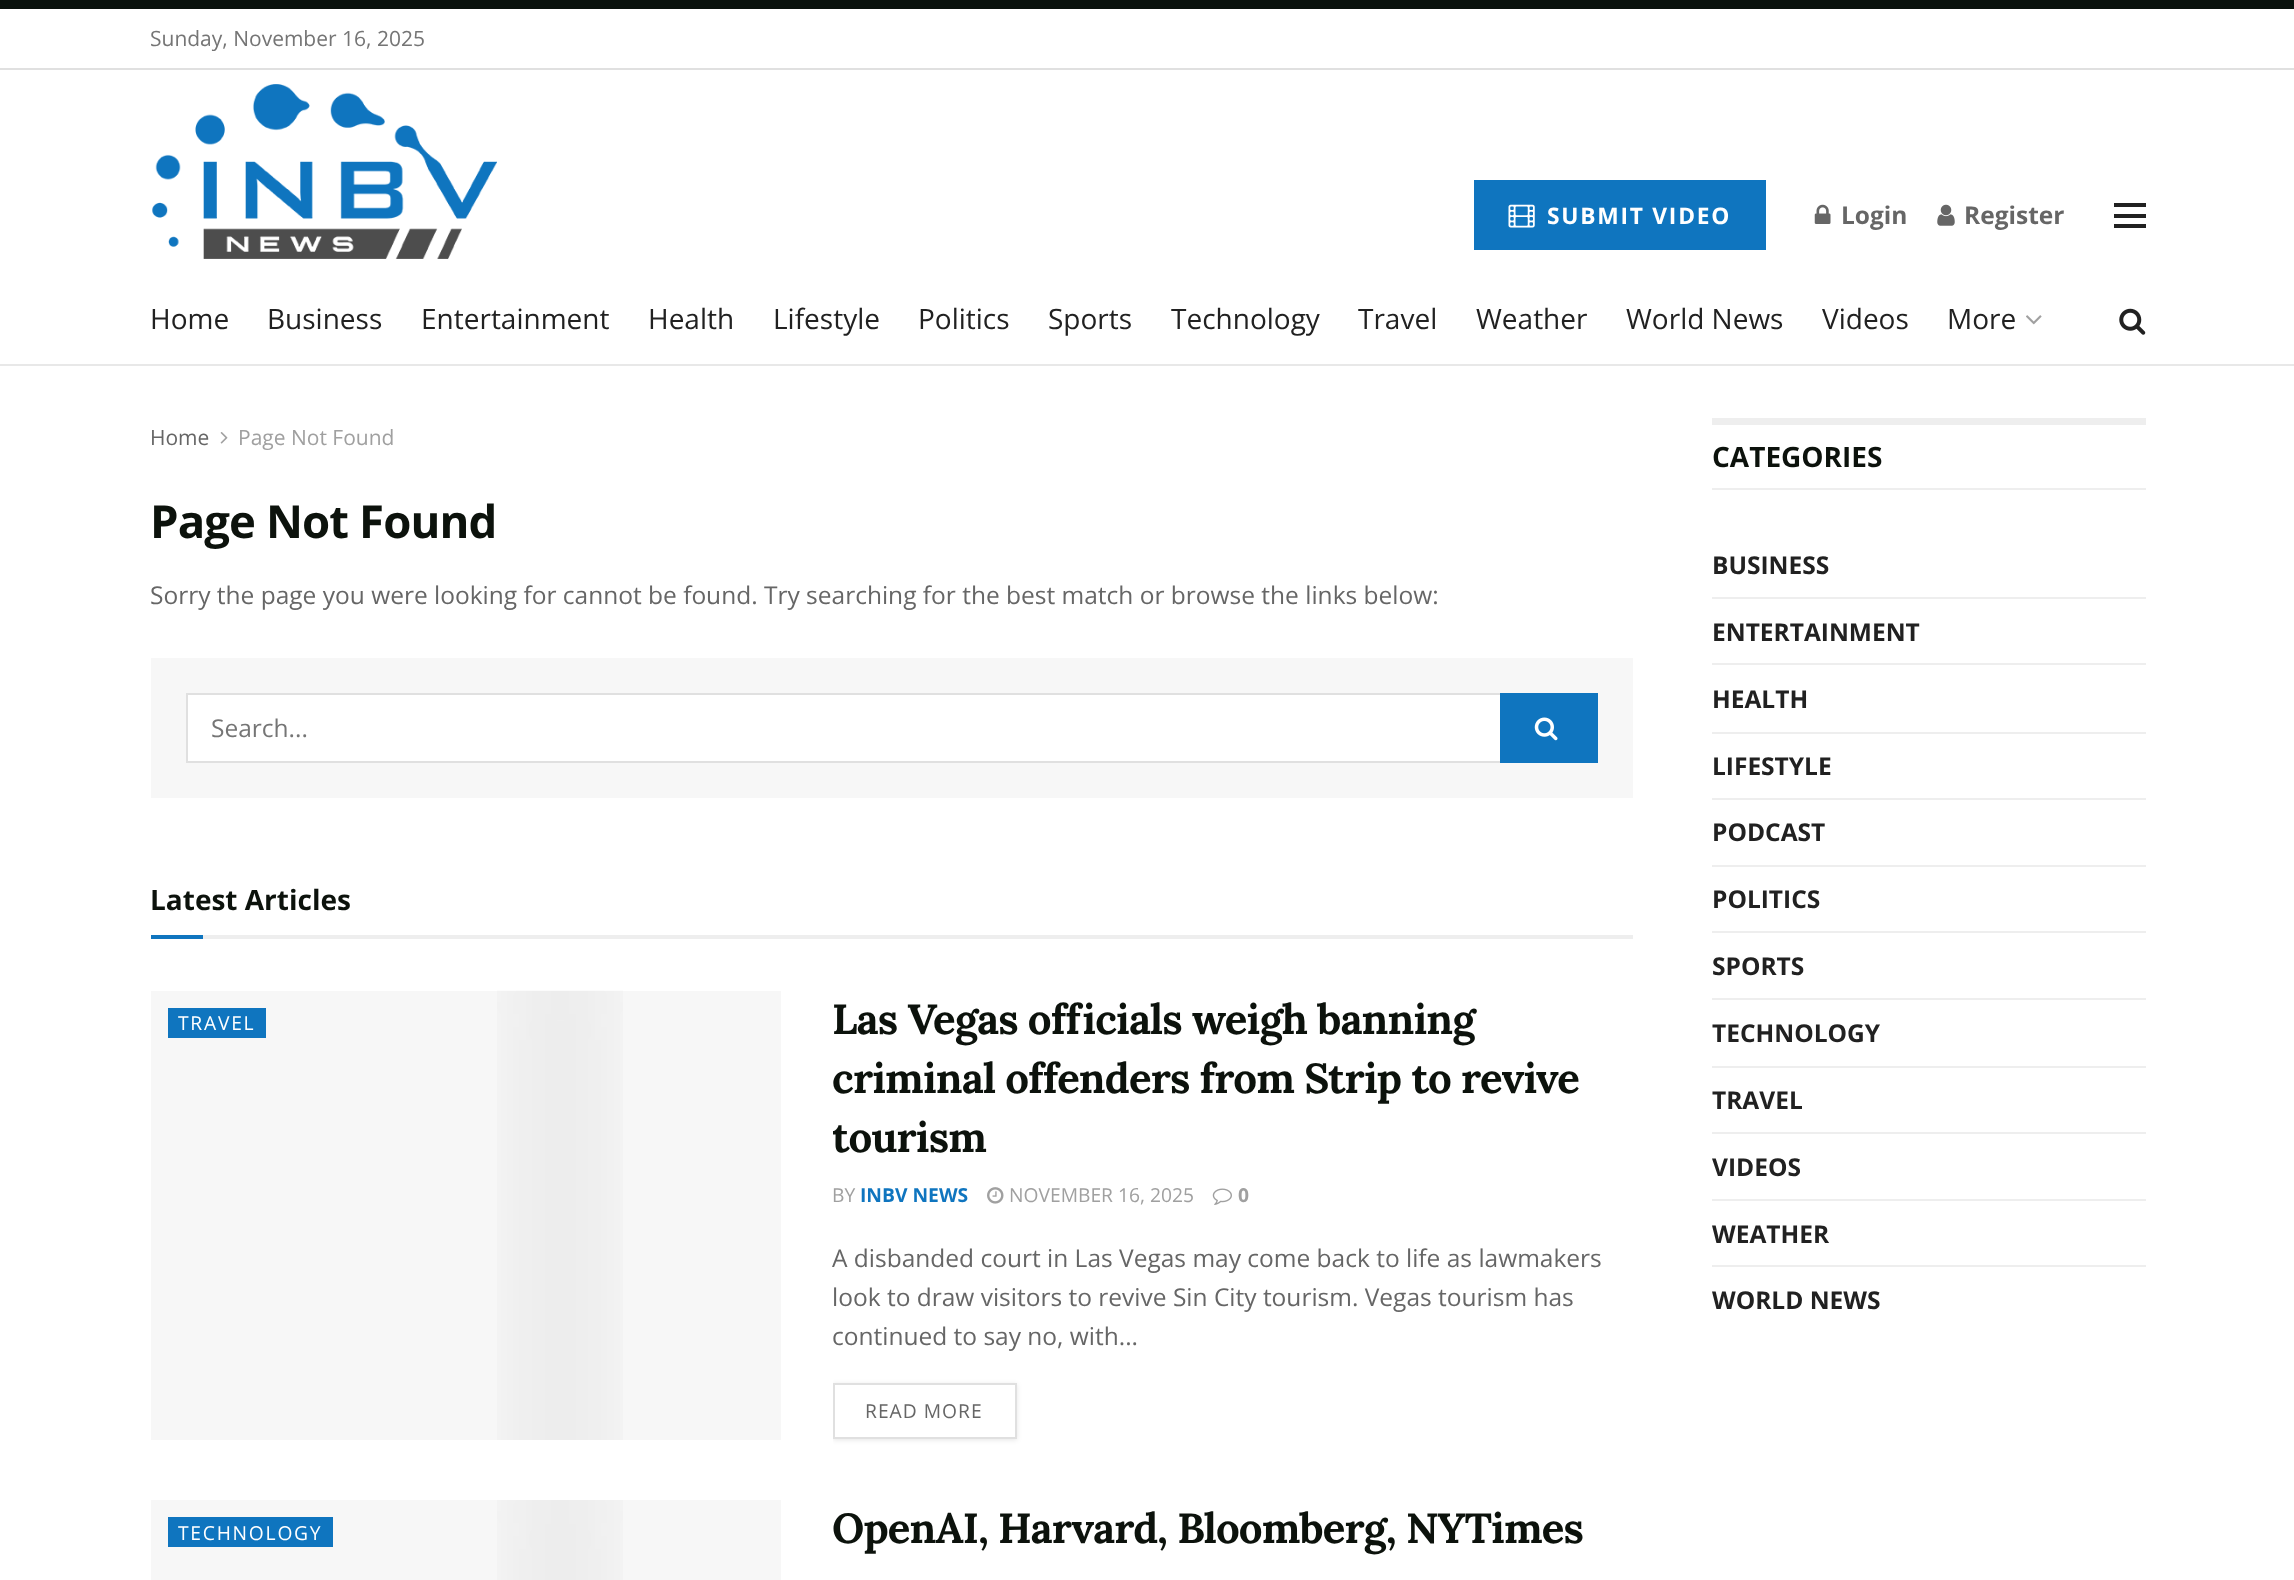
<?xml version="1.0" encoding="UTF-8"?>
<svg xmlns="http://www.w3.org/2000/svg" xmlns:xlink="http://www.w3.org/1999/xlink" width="2294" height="1580">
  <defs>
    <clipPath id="clip1"><rect x="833" y="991" width="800" height="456" /></clipPath>
    <clipPath id="clip2"><path d="M 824 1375 h 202 v 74 h -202 z m 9 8 h 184 v 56 h -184 z" clip-rule="evenodd" /></clipPath>
    <clipPath id="clip3"><rect x="833" y="991" width="800" height="456" /></clipPath>
  </defs>
  <rect width="100%" height="100%" fill="#ffffff" />
  <rect width="2294" height="9" fill="#0a120d" />
  <rect y="68" width="2294" height="2" fill="#e0e0e0" />
  <image x="152" y="84" width="345" height="175" xlink:href="image1.png" />
  <rect x="1474" y="180" width="292" height="70" fill="#0f75bf" />
  <image x="1508" y="204" width="27" height="24" xlink:href="image2.png" />
  <image x="1814" y="204" width="17" height="20" xlink:href="image3.png" />
  <image x="1937" y="204" width="18" height="22" xlink:href="image4.png" />
  <rect x="2114" y="203" width="32" height="4" fill="#212121" />
  <rect x="2114" y="214" width="32" height="4" fill="#212121" />
  <rect x="2114" y="224" width="32" height="4" fill="#212121" />
  <rect y="364" width="2294" height="2" fill="#e8e8e8" />
  <image x="2026" y="315" width="16" height="10" xlink:href="image5.png" />
  <image x="2119" y="308" width="27" height="27" xlink:href="image6.png" />
  <image x="220" y="432" width="8" height="12" xlink:href="image7.png" />
  <rect x="151" y="658" width="1482" height="140" fill="#f7f7f7" />
  <rect x="188" y="695" width="1312" height="66" fill="#ffffff" />
  <rect x="187" y="694" width="1410" height="68" fill="none" stroke="#e0e0e0" stroke-width="2" />
  <rect x="1500" y="693" width="98" height="70" fill="#0f75bf" />
  <image x="1534" y="717" width="24" height="24" xlink:href="image8.png" />
  <rect x="203" y="935" width="1430" height="4" fill="#eeeeee" />
  <rect x="151" y="935" width="52" height="4" fill="#0f75bf" />
  <rect x="151" y="991" width="630" height="449" fill="#f7f7f7" />
  <image x="497" y="990" width="126" height="450" xlink:href="image9.png" />
  <rect x="168" y="1008" width="98" height="30" fill="#0f75bf" />
  <image x="987" y="1187" width="17" height="17" xlink:href="image10.png" />
  <image x="1212" y="1188" width="20" height="17" xlink:href="image11.png" />
  <g clip-path="url(#clip1)">
    <g clip-path="url(#clip2)">
      <rect x="833" y="1384" width="184" height="56" fill="#000000" fill-opacity="0.1" filter="blur(2.5px)" />
    </g>
  </g>
  <rect x="834" y="1384" width="182" height="54" fill="none" stroke="#e0e0e0" stroke-width="2" />
  <rect x="151" y="1500" width="630" height="80" fill="#f7f7f7" />
  <image x="497" y="1500" width="126" height="80" xlink:href="image12.png" />
  <rect x="168" y="1517" width="165" height="30" fill="#0f75bf" />
  <rect x="1712" y="418" width="434" height="7" fill="#eeeeee" />
  <rect x="1712" y="488" width="434" height="2" fill="#eeeeee" />
  <rect x="1712" y="597" width="434" height="2" fill="#eeeeee" />
  <rect x="1712" y="663" width="434" height="2" fill="#eeeeee" />
  <rect x="1712" y="732" width="434" height="2" fill="#eeeeee" />
  <rect x="1712" y="798" width="434" height="2" fill="#eeeeee" />
  <rect x="1712" y="865" width="434" height="2" fill="#eeeeee" />
  <rect x="1712" y="931" width="434" height="2" fill="#eeeeee" />
  <rect x="1712" y="998" width="434" height="2" fill="#eeeeee" />
  <rect x="1712" y="1066" width="434" height="2" fill="#eeeeee" />
  <rect x="1712" y="1132" width="434" height="2" fill="#eeeeee" />
  <rect x="1712" y="1199" width="434" height="2" fill="#eeeeee" />
  <rect x="1712" y="1265" width="434" height="2" fill="#eeeeee" />
  <text x="150" y="46" style="font-family: Open Sans; font-size: 21px; fill: #757575">Sunday, November 16, 2025</text>
  <text x="1547" y="224" style="font-family: Open Sans; font-size: 22.75px; font-weight: bold; letter-spacing: 1.75px; fill: #ffffff">SUBMIT VIDEO</text>
  <text x="1841" y="224" style="font-family: Open Sans; font-size: 24.5px; font-weight: bold; fill: #666666">Login</text>
  <text x="1964" y="224" style="font-family: Open Sans; font-size: 24.5px; font-weight: bold; fill: #666666">Register</text>
  <text x="150" y="329" style="font-family: Open Sans; font-size: 28px; fill: #212121">Home</text>
  <text x="267" y="329" style="font-family: Open Sans; font-size: 28px; fill: #212121">Business</text>
  <text x="421" y="329" style="font-family: Open Sans; font-size: 28px; fill: #212121">Entertainment</text>
  <text x="648" y="329" style="font-family: Open Sans; font-size: 28px; fill: #212121">Health</text>
  <text x="773" y="329" style="font-family: Open Sans; font-size: 28px; fill: #212121">Lifestyle</text>
  <text x="918" y="329" style="font-family: Open Sans; font-size: 28px; fill: #212121">Politics</text>
  <text x="1048" y="329" style="font-family: Open Sans; font-size: 28px; fill: #212121">Sports</text>
  <text x="1171" y="329" style="font-family: Open Sans; font-size: 28px; fill: #212121">Technology</text>
  <text x="1358" y="329" style="font-family: Open Sans; font-size: 28px; fill: #212121">Travel</text>
  <text x="1476" y="329" style="font-family: Open Sans; font-size: 28px; fill: #212121">Weather</text>
  <text x="1626" y="329" style="font-family: Open Sans; font-size: 28px; fill: #212121">World News</text>
  <text x="1822" y="329" style="font-family: Open Sans; font-size: 28px; fill: #212121">Videos</text>
  <text x="1947" y="329" style="font-family: Open Sans; font-size: 28px; fill: #212121">More</text>
  <text x="150" y="445" style="font-family: Open Sans; font-size: 21px; fill: #666666">Home</text>
  <text x="238" y="445" style="font-family: Open Sans; font-size: 21px; fill: #a0a0a0">Page Not Found</text>
  <text x="150" y="538" style="font-family: Open Sans; font-size: 45.5px; font-weight: bold; letter-spacing: -0.9px; fill: #0c120c">Page Not Found</text>
  <text x="150" y="604" style="font-family: Open Sans; font-size: 24.5px; fill: #666666">Sorry the page you were looking for cannot be found. Try searching for the best match or browse the links below:</text>
  <text x="211" y="737" style="font-family: Open Sans; font-size: 24.5px; fill: #757575">Search...</text>
  <text x="150" y="910" style="font-family: Open Sans; font-size: 28px; font-weight: bold; fill: #0c120c">Latest Articles</text>
  <text x="178" y="1030" style="font-family: Open Sans; font-size: 19.25px; letter-spacing: 1.75px; fill: #ffffff">TRAVEL</text>
  <text x="832" y="1034" style="font-family: Lora; font-size: 42px; font-weight: bold; letter-spacing: -0.85px; fill: #0c120c">Las Vegas officials weigh banning</text>
  <text x="832" y="1093" style="font-family: Lora; font-size: 42px; font-weight: bold; letter-spacing: -0.85px; fill: #0c120c">criminal offenders from Strip to revive</text>
  <g clip-path="url(#clip3)">
    <text x="832" y="1152" style="font-family: Lora; font-size: 42px; font-weight: bold; letter-spacing: -0.85px; fill: #0c120c">tourism</text>
  </g>
  <text x="832" y="1202" style="font-family: Open Sans; font-size: 19.25px; fill: #a0a0a0">BY</text>
  <text x="860" y="1202" style="font-family: Open Sans; font-size: 19.25px; font-weight: bold; fill: #0f75bf">INBV NEWS</text>
  <text x="1009" y="1202" style="font-family: Open Sans; font-size: 19.25px; fill: #a0a0a0">NOVEMBER 16, 2025</text>
  <text x="1238" y="1202" style="font-family: Open Sans; font-size: 19.25px; font-weight: bold; fill: #a0a0a0">0</text>
  <text x="832" y="1267" style="font-family: Open Sans; font-size: 24.5px; fill: #666666">A disbanded court in Las Vegas may come back to life as lawmakers</text>
  <text x="832" y="1306" style="font-family: Open Sans; font-size: 24.5px; fill: #666666">look to draw visitors to revive Sin City tourism. Vegas tourism has</text>
  <text x="832" y="1345" style="font-family: Open Sans; font-size: 24.5px; fill: #666666">continued to say no, with...</text>
  <text x="865" y="1418" style="font-family: Open Sans; font-size: 19.25px; letter-spacing: 1px; fill: #666666">READ MORE</text>
  <text x="178" y="1540" style="font-family: Open Sans; font-size: 19.25px; letter-spacing: 1.75px; fill: #ffffff">TECHNOLOGY</text>
  <text x="832" y="1543" style="font-family: Lora; font-size: 42px; font-weight: bold; letter-spacing: -0.85px; fill: #0c120c">OpenAI, Harvard, Bloomberg, NYTimes</text>
  <text x="1712" y="467" style="font-family: Open Sans; font-size: 28px; font-weight: bold; fill: #0c120c">CATEGORIES</text>
  <text x="1712" y="574" style="font-family: Open Sans; font-size: 24.5px; font-weight: bold; fill: #212121">BUSINESS</text>
  <text x="1712" y="641" style="font-family: Open Sans; font-size: 24.5px; font-weight: bold; fill: #212121">ENTERTAINMENT</text>
  <text x="1712" y="708" style="font-family: Open Sans; font-size: 24.5px; font-weight: bold; fill: #212121">HEALTH</text>
  <text x="1712" y="775" style="font-family: Open Sans; font-size: 24.5px; font-weight: bold; fill: #212121">LIFESTYLE</text>
  <text x="1712" y="841" style="font-family: Open Sans; font-size: 24.5px; font-weight: bold; fill: #212121">PODCAST</text>
  <text x="1712" y="908" style="font-family: Open Sans; font-size: 24.5px; font-weight: bold; fill: #212121">POLITICS</text>
  <text x="1712" y="975" style="font-family: Open Sans; font-size: 24.5px; font-weight: bold; fill: #212121">SPORTS</text>
  <text x="1712" y="1042" style="font-family: Open Sans; font-size: 24.5px; font-weight: bold; fill: #212121">TECHNOLOGY</text>
  <text x="1712" y="1109" style="font-family: Open Sans; font-size: 24.5px; font-weight: bold; fill: #212121">TRAVEL</text>
  <text x="1712" y="1176" style="font-family: Open Sans; font-size: 24.5px; font-weight: bold; fill: #212121">VIDEOS</text>
  <text x="1712" y="1243" style="font-family: Open Sans; font-size: 24.5px; font-weight: bold; fill: #212121">WEATHER</text>
  <text x="1712" y="1309" style="font-family: Open Sans; font-size: 24.5px; font-weight: bold; fill: #212121">WORLD NEWS</text>
</svg>
